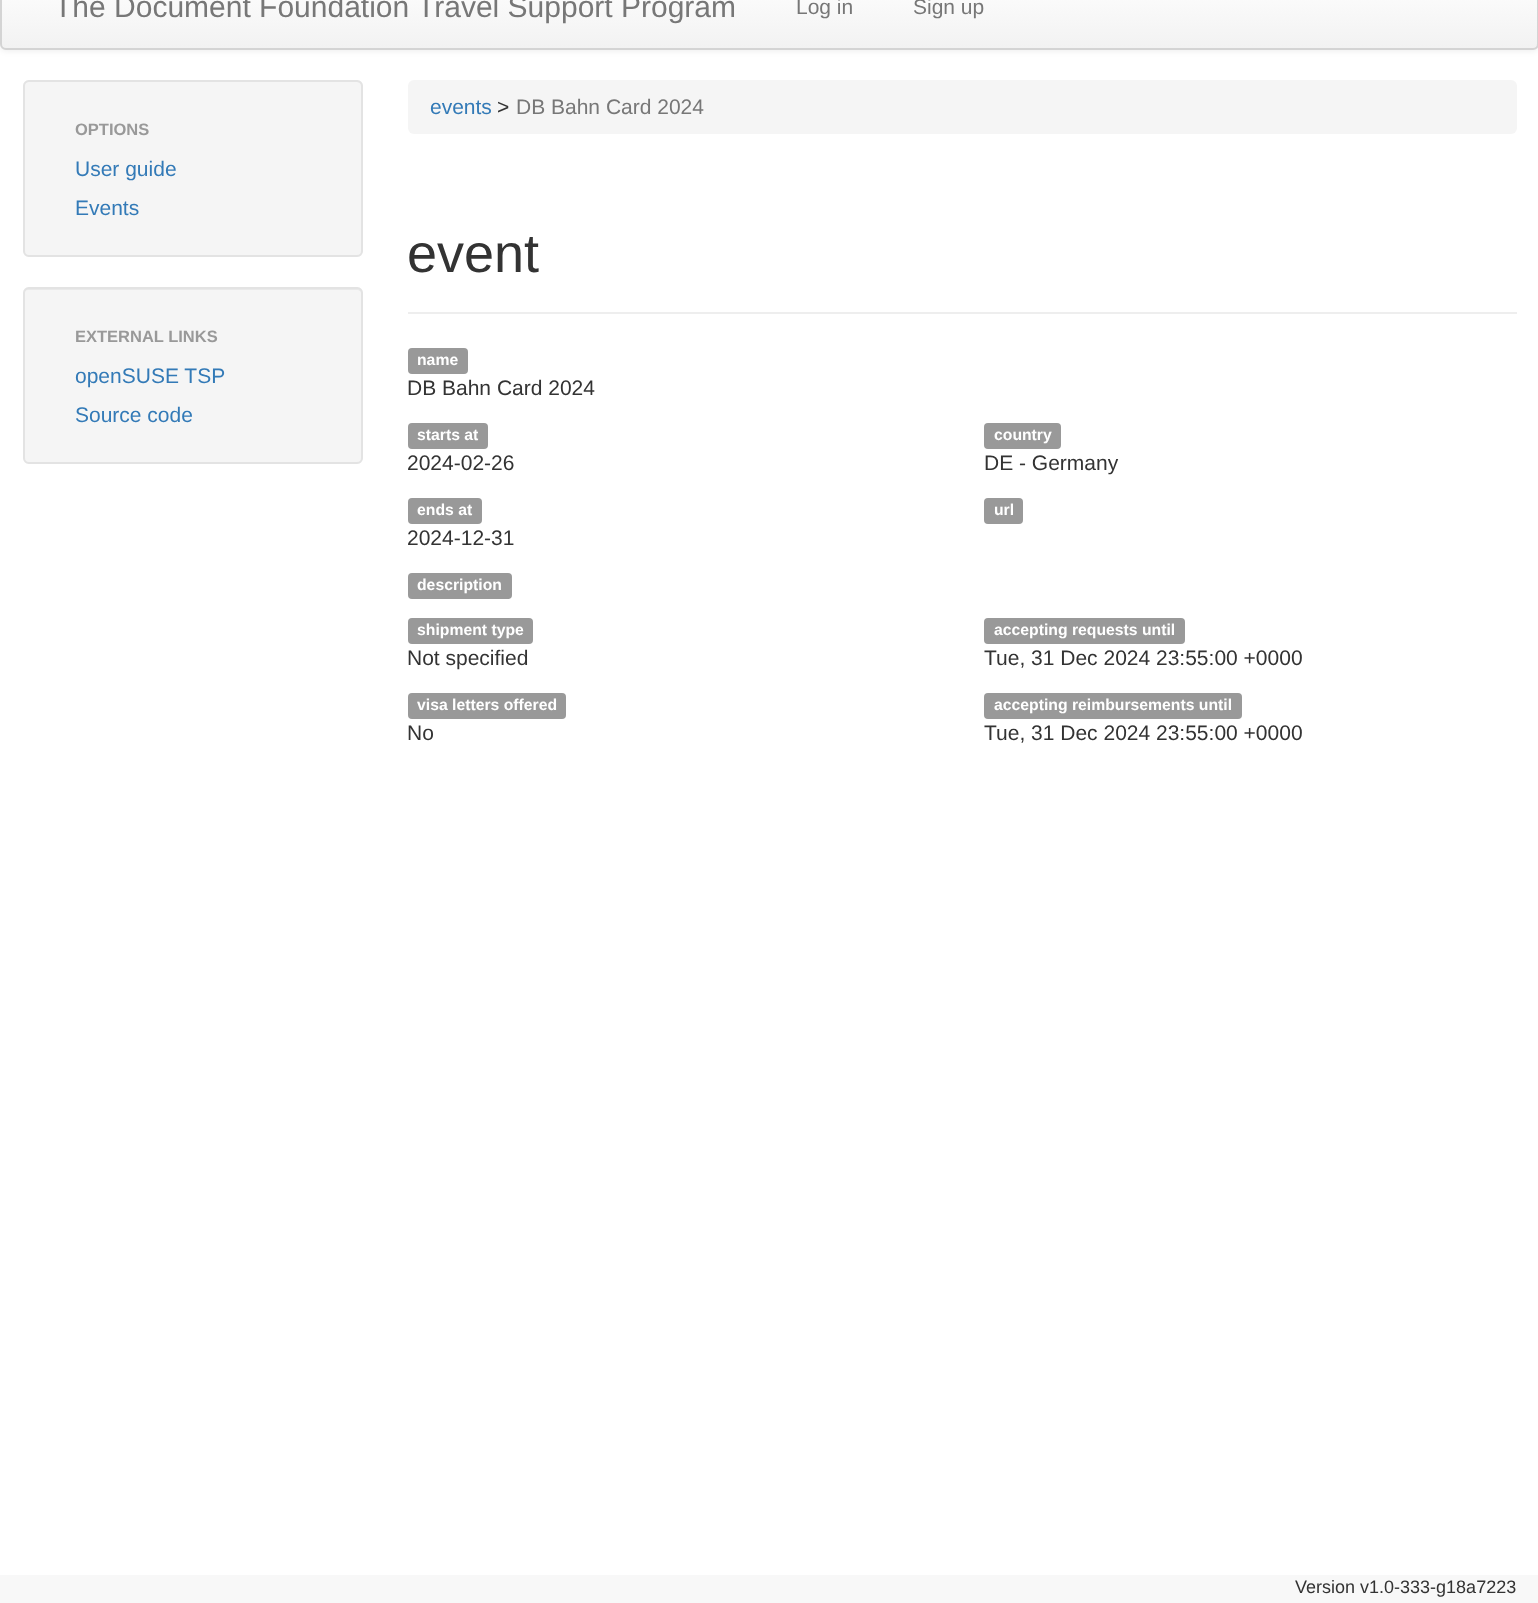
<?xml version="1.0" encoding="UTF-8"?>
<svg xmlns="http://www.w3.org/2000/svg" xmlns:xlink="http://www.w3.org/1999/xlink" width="1538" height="1603">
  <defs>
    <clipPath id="clip1"><rect y="-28" width="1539" height="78" rx="6" /></clipPath>
    <linearGradient id="g1" gradientUnits="userSpaceOnUse" x1="770" y1="-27" x2="770" y2="48"><stop offset="0" stop-color="#ffffff" /><stop offset="1" stop-color="#f2f2f2" /></linearGradient>
  </defs>
  <rect width="100%" height="100%" fill="#ffffff" />
  <rect y="-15" width="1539" height="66" rx="6" fill="#000000" fill-opacity="0.07" filter="blur(3px)" />
  <g clip-path="url(#clip1)">
    <rect width="1538" height="48" fill="url(#g1)" />
  </g>
  <rect x="1" y="-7" width="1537" height="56" rx="5" fill="none" stroke="#d4d4d4" stroke-width="2" />
  <rect x="23" y="80" width="340" height="177" rx="6" fill="#f5f5f5" />
  <path d="M 28 82 h 329 c 2 0 5 3 5 5 c 0 -3 -2 -6 -5 -6 h -328 c -3 0 -5 3 -5 6 c 0 -2 2 -5 4 -5 z" fill="#e9e9e9" />
  <rect x="24" y="81" width="338" height="175" rx="5" fill="none" stroke="#e3e3e3" stroke-width="2" />
  <rect x="23" y="287" width="340" height="177" rx="6" fill="#f5f5f5" />
  <path d="M 28 290 h 329 c 2 0 5 2 5 4 c 0 -3 -2 -6 -5 -6 h -328 c -3 0 -5 3 -5 6 c 0 -2 2 -4 4 -4 z" fill="#e9e9e9" />
  <rect x="24" y="288" width="338" height="175" rx="5" fill="none" stroke="#e3e3e3" stroke-width="2" />
  <rect x="408" y="80" width="1109" height="54" rx="6" fill="#f5f5f5" />
  <rect x="408" y="312" width="1109" height="2" fill="#eeeeee" />
  <rect x="408" y="348" width="60" height="26" rx="4" fill="#999999" />
  <rect x="408" y="423" width="80" height="26" rx="4" fill="#999999" />
  <rect x="408" y="498" width="74" height="26" rx="4" fill="#999999" />
  <rect x="984" y="423" width="77" height="26" rx="4" fill="#999999" />
  <rect x="984" y="498" width="39" height="26" rx="4" fill="#999999" />
  <rect x="408" y="573" width="104" height="26" rx="4" fill="#999999" />
  <rect x="408" y="618" width="125" height="26" rx="4" fill="#999999" />
  <rect x="408" y="693" width="158" height="26" rx="4" fill="#999999" />
  <rect x="984" y="618" width="201" height="26" rx="4" fill="#999999" />
  <rect x="984" y="693" width="258" height="26" rx="4" fill="#999999" />
  <rect y="1575" width="1538" height="28" fill="#f8f8f8" />
  <text x="54" y="17" style="font-family: Liberation Sans; font-size: 30px; fill: #777777">The Document Foundation Travel Support Program</text>
  <text x="796" y="14" style="font-family: Liberation Sans; font-size: 21px; fill: #777777">Log in</text>
  <text x="913" y="14" style="font-family: Liberation Sans; font-size: 21px; fill: #777777">Sign up</text>
  <text x="75" y="135" style="font-family: Liberation Sans; font-size: 16.5px; font-weight: bold; fill: #999999">OPTIONS</text>
  <text x="75" y="176" style="font-family: Liberation Sans; font-size: 21px; fill: #337ab7">User guide</text>
  <text x="75" y="215" style="font-family: Liberation Sans; font-size: 21px; fill: #337ab7">Events</text>
  <text x="75" y="342" style="font-family: Liberation Sans; font-size: 16.5px; font-weight: bold; fill: #999999">EXTERNAL LINKS</text>
  <text x="75" y="383" style="font-family: Liberation Sans; font-size: 21px; fill: #337ab7">openSUSE TSP</text>
  <text x="75" y="422" style="font-family: Liberation Sans; font-size: 21px; fill: #337ab7">Source code</text>
  <text x="430" y="114" style="font-family: Liberation Sans; font-size: 21px; fill: #337ab7">events</text>
  <text x="497" y="114" style="font-family: Liberation Sans; font-size: 21px; fill: #333333">&gt;</text>
  <text x="516" y="114" style="font-family: Liberation Sans; font-size: 21px; fill: #777777">DB Bahn Card 2024</text>
  <text x="407" y="272" style="font-family: Liberation Sans; font-size: 54px; fill: #333333">event</text>
  <text x="417" y="365" style="font-family: Liberation Sans; font-size: 15.75px; font-weight: bold; fill: #ffffff">name</text>
  <text x="407" y="395" style="font-family: Liberation Sans; font-size: 21px; fill: #333333">DB Bahn Card 2024</text>
  <text x="417" y="440" style="font-family: Liberation Sans; font-size: 15.75px; font-weight: bold; fill: #ffffff">starts at</text>
  <text x="407" y="470" style="font-family: Liberation Sans; font-size: 21px; fill: #333333">2024-02-26</text>
  <text x="417" y="515" style="font-family: Liberation Sans; font-size: 15.75px; font-weight: bold; fill: #ffffff">ends at</text>
  <text x="407" y="545" style="font-family: Liberation Sans; font-size: 21px; fill: #333333">2024-12-31</text>
  <text x="994" y="440" style="font-family: Liberation Sans; font-size: 15.75px; font-weight: bold; fill: #ffffff">country</text>
  <text x="984" y="470" style="font-family: Liberation Sans; font-size: 21px; fill: #333333">DE - Germany</text>
  <text x="994" y="515" style="font-family: Liberation Sans; font-size: 15.75px; font-weight: bold; fill: #ffffff">url</text>
  <text x="417" y="590" style="font-family: Liberation Sans; font-size: 15.75px; font-weight: bold; fill: #ffffff">description</text>
  <text x="417" y="635" style="font-family: Liberation Sans; font-size: 15.75px; font-weight: bold; fill: #ffffff">shipment type</text>
  <text x="407" y="665" style="font-family: Liberation Sans; font-size: 21px; fill: #333333">Not specified</text>
  <text x="417" y="710" style="font-family: Liberation Sans; font-size: 15.75px; font-weight: bold; fill: #ffffff">visa letters offered</text>
  <text x="407" y="740" style="font-family: Liberation Sans; font-size: 21px; fill: #333333">No</text>
  <text x="994" y="635" style="font-family: Liberation Sans; font-size: 15.75px; font-weight: bold; fill: #ffffff">accepting requests until</text>
  <text x="984" y="665" style="font-family: Liberation Sans; font-size: 21px; fill: #333333">Tue, 31 Dec 2024 23:55:00 +0000</text>
  <text x="994" y="710" style="font-family: Liberation Sans; font-size: 15.75px; font-weight: bold; fill: #ffffff">accepting reimbursements until</text>
  <text x="984" y="740" style="font-family: Liberation Sans; font-size: 21px; fill: #333333">Tue, 31 Dec 2024 23:55:00 +0000</text>
  <text x="1295" y="1593" style="font-family: Liberation Sans; font-size: 18px; fill: #333333">Version v1.0-333-g18a7223</text>
</svg>
